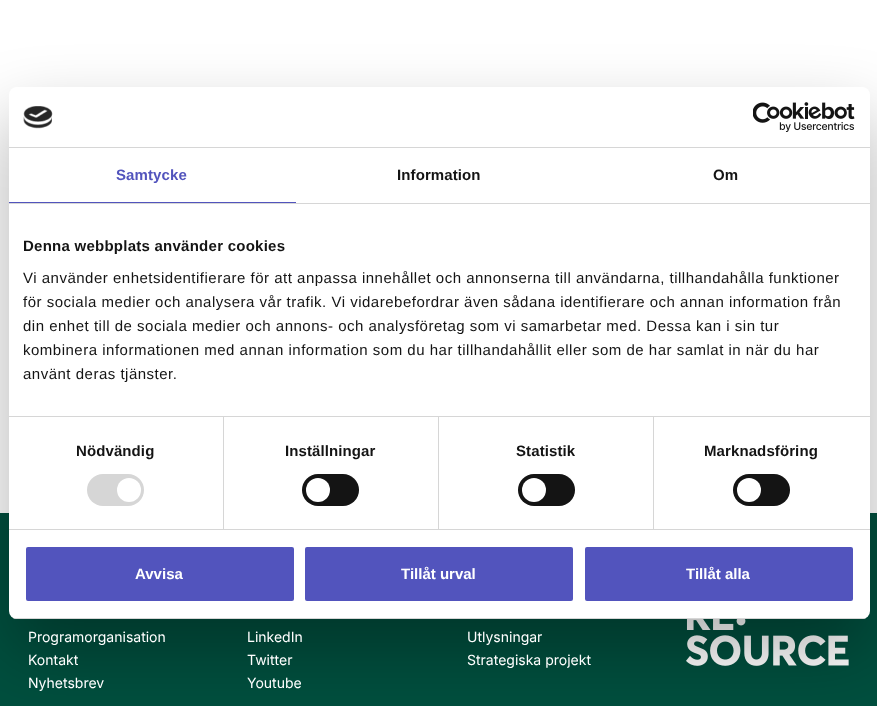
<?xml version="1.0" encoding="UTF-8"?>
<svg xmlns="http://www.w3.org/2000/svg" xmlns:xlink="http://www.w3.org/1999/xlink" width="877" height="706">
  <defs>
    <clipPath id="clip1"><rect x="9" y="87" width="861" height="532" rx="8" /></clipPath>
  </defs>
  <rect width="100%" height="100%" fill="#ffffff" />
  <rect y="513" width="877" height="193" fill="#004f3e" />
  <image x="686" y="619" width="163" height="47" xlink:href="image3.png" />
  <rect x="9" y="119" width="861" height="532" rx="8" fill="#000000" fill-opacity="0.3" filter="blur(34px)" />
  <rect x="9" y="87" width="861" height="532" rx="8" fill="#ffffff" />
  <rect x="9" y="147" width="861" height="1" fill="#d6d6d6" />
  <image x="23" y="106" width="30" height="23" xlink:href="image1.png" />
  <image x="753" y="102" width="102" height="30" xlink:href="image2.png" />
  <rect x="9" y="203" width="861" height="1" fill="#d6d6d6" />
  <rect x="9" y="202" width="287" height="1" fill="#5254bd" />
  <rect x="9" y="416" width="861" height="1" fill="#d6d6d6" />
  <rect x="9" y="529" width="861" height="1" fill="#d6d6d6" />
  <rect x="223" y="417" width="1" height="112" fill="#d6d6d6" />
  <rect x="87" y="474" width="57" height="32" rx="16" fill="#d6d6d6" />
  <circle cx="129" cy="490" r="12" fill="#ffffff" />
  <rect x="438" y="417" width="1" height="112" fill="#d6d6d6" />
  <rect x="302" y="474" width="57" height="32" rx="16" fill="#141414" />
  <circle cx="318" cy="490" r="12" fill="#ffffff" />
  <rect x="653" y="417" width="1" height="112" fill="#d6d6d6" />
  <rect x="518" y="474" width="57" height="32" rx="16" fill="#141414" />
  <circle cx="534" cy="490" r="12" fill="#ffffff" />
  <rect x="733" y="474" width="57" height="32" rx="16" fill="#141414" />
  <circle cx="749" cy="490" r="12" fill="#ffffff" />
  <g clip-path="url(#clip1)">
    <rect x="9" y="618" width="861" height="1" fill="#d6d6d6" />
  </g>
  <rect x="25" y="546" width="270" height="56" rx="3" fill="#5254bd" stroke="#ffffff" stroke-width="2" />
  <rect x="304" y="546" width="270" height="56" rx="3" fill="#5254bd" stroke="#ffffff" stroke-width="2" />
  <rect x="584" y="546" width="270" height="56" rx="3" fill="#5254bd" stroke="#ffffff" stroke-width="2" />
  <text x="116" y="180" style="font-family: Liberation Sans; font-size: 15px; font-weight: bold; letter-spacing: 0.1px; fill: #5254bd">Samtycke</text>
  <text x="397" y="180" style="font-family: Liberation Sans; font-size: 15px; font-weight: bold; letter-spacing: 0.1px; fill: #141414">Information</text>
  <text x="713" y="180" style="font-family: Liberation Sans; font-size: 15px; font-weight: bold; letter-spacing: 0.1px; fill: #141414">Om</text>
  <text x="23" y="251" style="font-family: Liberation Sans; font-size: 15px; font-weight: bold; letter-spacing: 0.25px; fill: #141414">Denna webbplats använder cookies</text>
  <text x="23" y="283" style="font-family: Liberation Sans; font-size: 15px; letter-spacing: 0.5px; fill: #141414">Vi använder enhetsidentifierare för att anpassa innehållet och annonserna till användarna, tillhandahålla funktioner</text>
  <text x="23" y="307" style="font-family: Liberation Sans; font-size: 15px; letter-spacing: 0.5px; fill: #141414">för sociala medier och analysera vår trafik. Vi vidarebefordrar även sådana identifierare och annan information från</text>
  <text x="23" y="331" style="font-family: Liberation Sans; font-size: 15px; letter-spacing: 0.5px; fill: #141414">din enhet till de sociala medier och annons- och analysföretag som vi samarbetar med. Dessa kan i sin tur</text>
  <text x="23" y="355" style="font-family: Liberation Sans; font-size: 15px; letter-spacing: 0.5px; fill: #141414">kombinera informationen med annan information som du har tillhandahållit eller som de har samlat in när du har</text>
  <text x="23" y="379" style="font-family: Liberation Sans; font-size: 15px; letter-spacing: 0.5px; fill: #141414">använt deras tjänster.</text>
  <text x="76" y="456" style="font-family: Liberation Sans; font-size: 15px; font-weight: bold; letter-spacing: 0.1px; fill: #141414">Nödvändig</text>
  <text x="285" y="456" style="font-family: Liberation Sans; font-size: 15px; font-weight: bold; letter-spacing: 0.1px; fill: #141414">Inställningar</text>
  <text x="516" y="456" style="font-family: Liberation Sans; font-size: 15px; font-weight: bold; letter-spacing: 0.1px; fill: #141414">Statistik</text>
  <text x="704" y="456" style="font-family: Liberation Sans; font-size: 15px; font-weight: bold; letter-spacing: 0.1px; fill: #141414">Marknadsföring</text>
  <text x="135" y="579" style="font-family: Liberation Sans; font-size: 15px; font-weight: bold; fill: #ffffff">Avvisa</text>
  <text x="401" y="579" style="font-family: Liberation Sans; font-size: 15px; font-weight: bold; fill: #ffffff">Tillåt urval</text>
  <text x="686" y="579" style="font-family: Liberation Sans; font-size: 15px; font-weight: bold; fill: #ffffff">Tillåt alla</text>
  <text x="28" y="642" style="font-family: Inter; font-size: 14px; fill: #ffffff">Programorganisation</text>
  <text x="28" y="665" style="font-family: Inter; font-size: 14px; fill: #ffffff">Kontakt</text>
  <text x="28" y="688" style="font-family: Inter; font-size: 14px; fill: #ffffff">Nyhetsbrev</text>
  <text x="247" y="642" style="font-family: Inter; font-size: 14px; fill: #ffffff">LinkedIn</text>
  <text x="247" y="665" style="font-family: Inter; font-size: 14px; fill: #ffffff">Twitter</text>
  <text x="247" y="688" style="font-family: Inter; font-size: 14px; fill: #ffffff">Youtube</text>
  <text x="467" y="642" style="font-family: Inter; font-size: 14px; fill: #ffffff">Utlysningar</text>
  <text x="467" y="665" style="font-family: Inter; font-size: 14px; fill: #ffffff">Strategiska projekt</text>
</svg>
